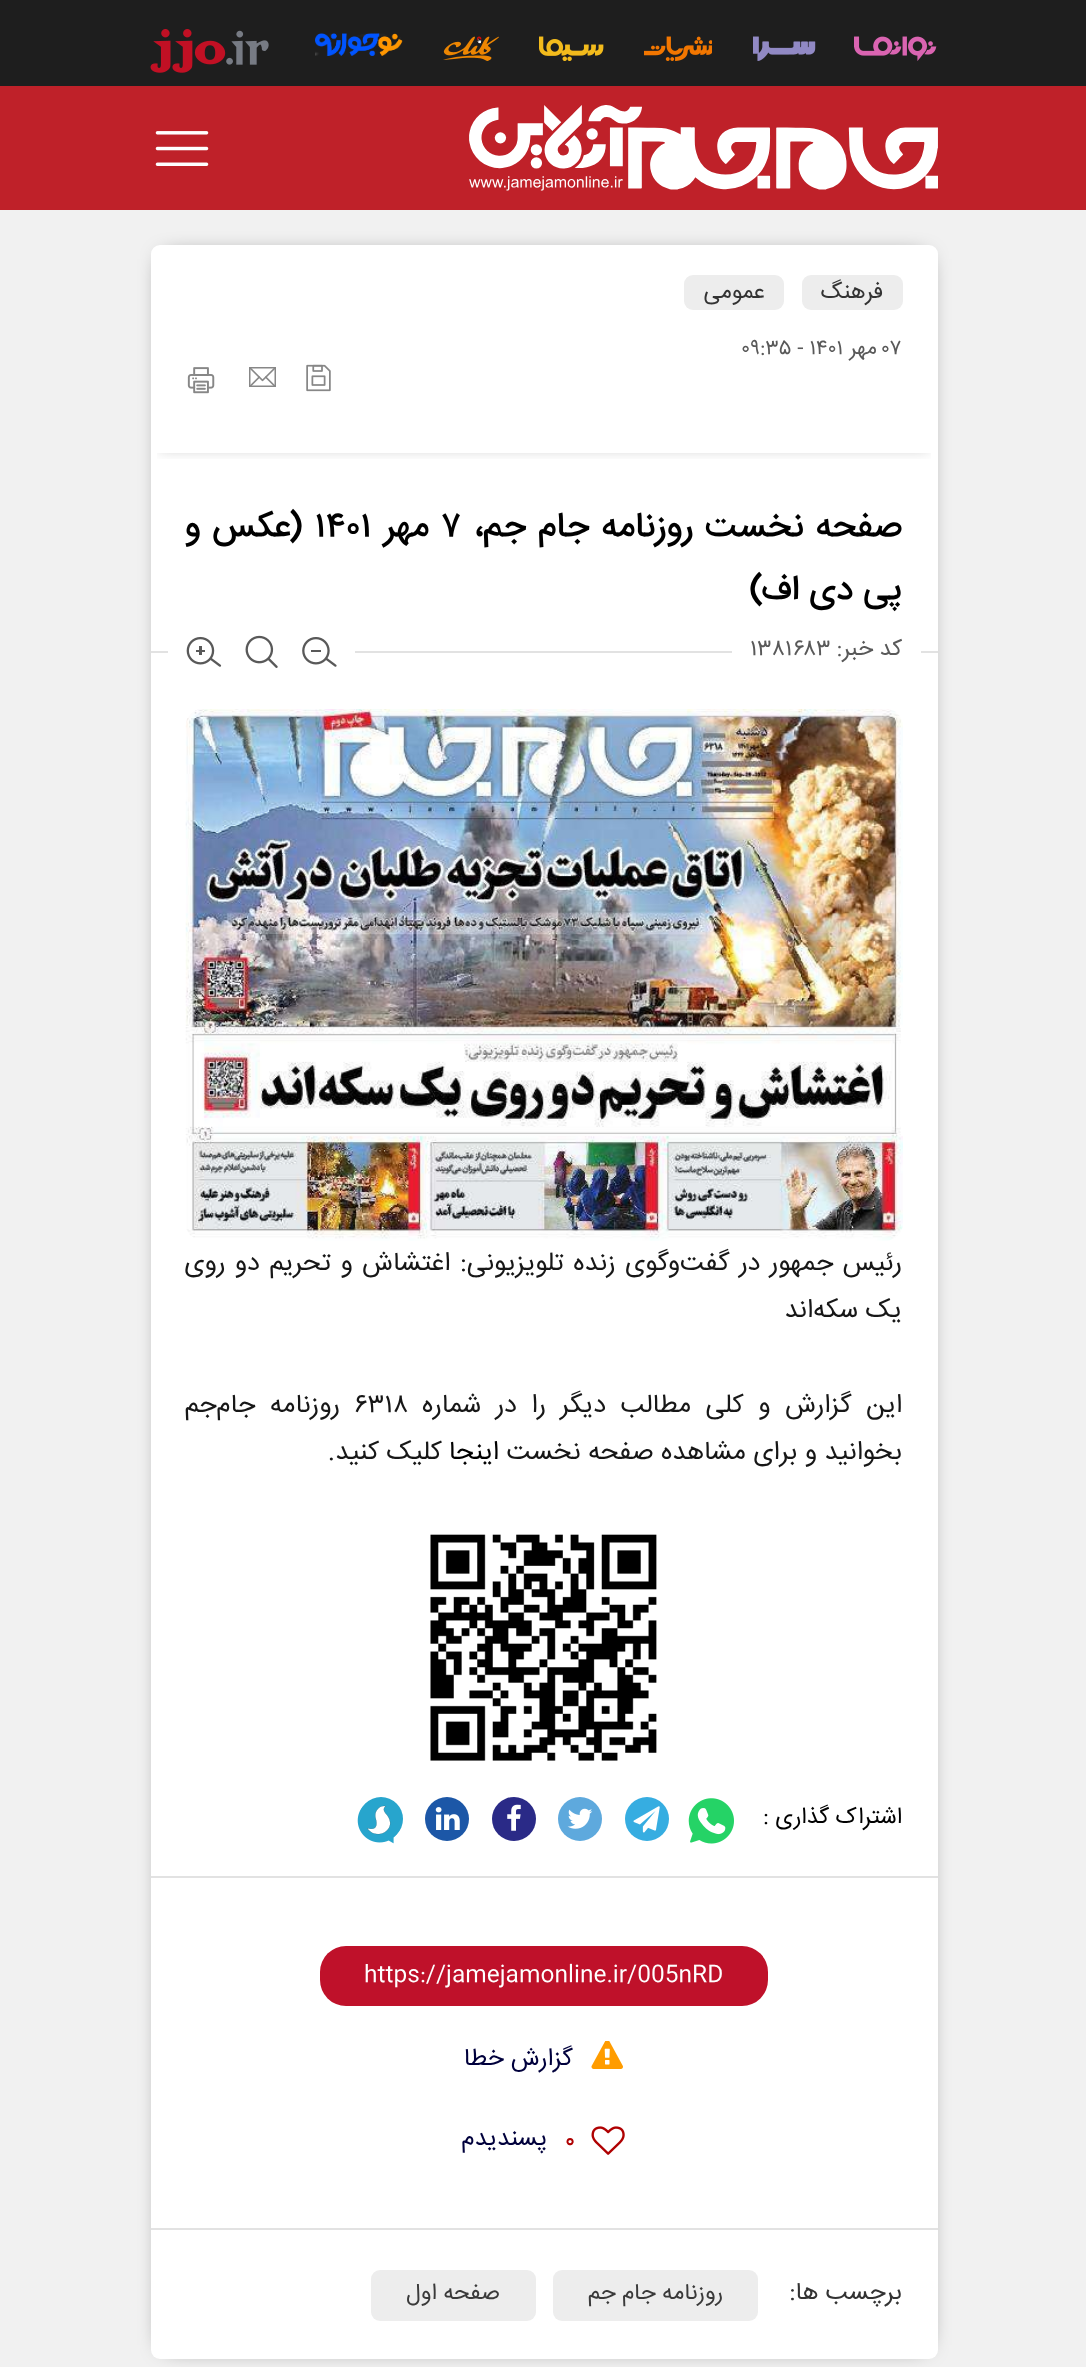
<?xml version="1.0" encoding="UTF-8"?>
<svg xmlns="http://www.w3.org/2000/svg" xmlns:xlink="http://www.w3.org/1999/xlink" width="1086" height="2367">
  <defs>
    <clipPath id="clip1"><rect x="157" y="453" width="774" height="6" /></clipPath>
  </defs>
  <rect width="100%" height="100%" fill="#f1f1f1" />
  <rect width="1086" height="86" fill="#1e1e1e" />
  <image x="854" y="36" width="83" height="25" xlink:href="image1.png" />
  <image x="753" y="36" width="63" height="25" xlink:href="image2.png" />
  <image x="644" y="36" width="68" height="25" xlink:href="image3.png" />
  <image x="539" y="36" width="65" height="25" xlink:href="image4.png" />
  <image x="476" y="36" width="6" height="5" xlink:href="image6.png" />
  <image x="477" y="38" width="5" height="6" xlink:href="image7.png" />
  <image x="477" y="38" width="5" height="6" xlink:href="image8.png" />
  <path d="M 487 61 l -4 -2 c -9 -2 -19 -1 -29 0 l -11 1 l 3 -1 l 10 -2 c 8 -1 30 -3 35 0 c 2 2 -3 4 -4 4 z" fill="#ed8602" />
  <image x="443" y="36" width="56" height="20" xlink:href="image5.png" />
  <image x="315" y="33" width="88" height="23" xlink:href="image9.png" />
  <image x="226" y="30" width="43" height="35" xlink:href="image10.png" />
  <image x="150" y="29" width="76" height="44" xlink:href="image11.png" />
  <rect y="86" width="1086" height="124" fill="#bf2129" />
  <image x="469" y="105" width="469" height="86" xlink:href="image12.png" />
  <image x="155" y="131" width="54" height="35" xlink:href="image13.png" />
  <rect x="165" y="259" width="759" height="2086" fill="#000000" fill-opacity="0.75" filter="blur(11.5px)" />
  <rect x="151" y="245" width="787" height="2114" rx="9" fill="#ffffff" />
  <g clip-path="url(#clip1)">
    <rect x="159" y="259" width="770" height="191" fill="#000000" fill-opacity="0.2" filter="blur(7px)" />
  </g>
  <rect x="802" y="275" width="101" height="35" rx="9" fill="#ededed" />
  <rect x="684" y="275" width="100" height="35" rx="9" fill="#ededed" />
  <image x="306" y="364" width="25" height="28" xlink:href="image14.png" />
  <image x="249" y="367" width="27" height="20" xlink:href="image15.png" />
  <image x="187" y="367" width="28" height="27" xlink:href="image16.png" />
  <rect x="151" y="651" width="787" height="2" fill="#e2e2e2" />
  <rect x="732" y="651" width="189" height="2" fill="#ffffff" />
  <rect x="168" y="651" width="187" height="2" fill="#ffffff" />
  <image x="302" y="637" width="35" height="30" xlink:href="image17.png" />
  <image x="245" y="635" width="33" height="33" xlink:href="image18.png" />
  <image x="186" y="636" width="36" height="31" xlink:href="image19.png" />
  <image x="185" y="709" width="718" height="532" xlink:href="image20.png" />
  <image x="430" y="1534" width="227" height="227" xlink:href="image21.png" />
  <rect x="151" y="1876" width="787" height="2" fill="#e2e2e2" />
  <image x="688" y="1798" width="46" height="46" xlink:href="image22.png" />
  <circle cx="647" cy="1819" r="22" fill="#36ade1" />
  <image x="633" y="1806" width="27" height="27" xlink:href="image23.png" />
  <circle cx="580" cy="1819" r="22" fill="#5ea9dd" />
  <image x="567" y="1808" width="26" height="21" xlink:href="image24.png" />
  <circle cx="514" cy="1819" r="22" fill="#2a2a87" />
  <image x="507" y="1804" width="14" height="27" xlink:href="image25.png" />
  <circle cx="447" cy="1819" r="22" fill="#1c57a7" />
  <image x="435" y="1807" width="25" height="23" xlink:href="image26.png" />
  <circle cx="381" cy="1819" r="22" fill="#27a5cd" />
  <image x="357" y="1801" width="44" height="43" xlink:href="image27.png" />
  <rect x="151" y="2228" width="787" height="2" fill="#e2e2e2" />
  <rect x="320" y="1946" width="448" height="60" rx="26" fill="#bf112a" />
  <image x="591" y="2041" width="32" height="28" xlink:href="image28.png" />
  <image x="591" y="2126" width="34" height="29" xlink:href="image29.png" />
  <rect x="553" y="2270" width="205" height="51" rx="9" fill="#ededed" />
  <rect x="371" y="2270" width="165" height="51" rx="9" fill="#ededed" />
  <text x="883" y="298" style="font-family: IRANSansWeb; font-size: 22.75px; direction: rtl; fill: #333333">فرهنگ</text>
  <text x="765" y="298" style="font-family: IRANSansWeb; font-size: 22.75px; direction: rtl; fill: #333333">عمومی</text>
  <text x="882" y="354" style="font-family: IRANSansWeb; font-size: 21px; fill: #595959">۰۷</text>
  <text x="877" y="354" style="font-family: IRANSansWeb; font-size: 21px; direction: rtl; fill: #595959">مهر</text>
  <text x="741" y="354" style="font-family: IRANSansWeb; font-size: 21px; fill: #595959">۰۹:۳۵ - ۱۴۰۱</text>
  <text x="902" y="536" word-spacing="2" style="font-family: IRANSansWeb; font-size: 35px; font-weight: 500; direction: rtl; fill: #000000">صفحه نخست روزنامه جام جم،</text>
  <text x="441" y="536" style="font-family: IRANSansWeb; font-size: 35px; font-weight: 500; fill: #000000">۷</text>
  <text x="429" y="536" style="font-family: IRANSansWeb; font-size: 35px; font-weight: 500; direction: rtl; fill: #000000">مهر</text>
  <text x="315" y="536" style="font-family: IRANSansWeb; font-size: 35px; font-weight: 500; fill: #000000">۱۴۰۱</text>
  <text x="303" y="536" word-spacing="2" style="font-family: IRANSansWeb; font-size: 35px; font-weight: 500; direction: rtl; fill: #000000">(عکس و</text>
  <text x="902" y="599" style="font-family: IRANSansWeb; font-size: 35px; font-weight: 500; direction: rtl; fill: #000000">پی دی اف)</text>
  <text x="902" y="655" style="font-family: IRANSansWeb; font-size: 22.75px; direction: rtl; fill: #595959">کد خبر:</text>
  <text x="750" y="655" style="font-family: IRANSansWeb; font-size: 22.75px; fill: #595959">۱۳۸۱۶۸۳</text>
  <text x="902" y="1270" word-spacing="2" style="font-family: IRANSansWeb; font-size: 26.25px; direction: rtl; fill: #171717">رئیس جمهور در گفت‌و‌گوی زنده تلویزیونی: اغتشاش و تحریم دو روی</text>
  <text x="902" y="1317" style="font-family: IRANSansWeb; font-size: 26.25px; direction: rtl; fill: #171717">یک سکه‌اند</text>
  <text x="902" y="1412" word-spacing="7" style="font-family: IRANSansWeb; font-size: 26.25px; direction: rtl; fill: #171717">این گزارش و کلی مطالب دیگر را در شماره</text>
  <text x="355" y="1412" style="font-family: IRANSansWeb; font-size: 26.25px; fill: #171717">۶۳۱۸</text>
  <text x="340" y="1412" word-spacing="7" style="font-family: IRANSansWeb; font-size: 26.25px; direction: rtl; fill: #171717">روزنامه جام‌جم</text>
  <text x="902" y="1459" style="font-family: IRANSansWeb; font-size: 26.25px; direction: rtl; fill: #171717">بخوانید و برای مشاهده صفحه نخست</text>
  <text x="499" y="1459" style="font-family: IRANSansWeb; font-size: 26.25px; direction: rtl; fill: #000000">اینجا</text>
  <text x="442" y="1459" style="font-family: IRANSansWeb; font-size: 26.25px; direction: rtl; fill: #171717">کلیک کنید.</text>
  <text x="902" y="1823" style="font-family: IRANSansWeb; font-size: 22.75px; direction: rtl; fill: #000000">اشتراک گذاری :</text>
  <text x="364" y="1981" style="font-family: IRANSansWeb; font-size: 22.75px; fill: #ffffff">https://jamejamonline.ir/005nRD</text>
  <text x="573" y="2065" style="font-family: IRANSansWeb; font-size: 24.5px; direction: rtl; fill: #00003c">گزارش خطا</text>
  <text x="565" y="2147" style="font-family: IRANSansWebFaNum; font-size: 22.75px; font-weight: 500; fill: #af0001">۰</text>
  <text x="547" y="2145" style="font-family: IRANSansWeb; font-size: 24.5px; direction: rtl; fill: #00003c">پسندیدم</text>
  <text x="902" y="2299" style="font-family: IRANSansWeb; font-size: 24.5px; direction: rtl; fill: #333333">برچسب ها:</text>
  <text x="723" y="2299" style="font-family: IRANSansWeb; font-size: 22.75px; direction: rtl; fill: #3a3a3a">روزنامه جام جم</text>
  <text x="500" y="2299" style="font-family: IRANSansWeb; font-size: 22.75px; direction: rtl; fill: #3a3a3a">صفحه اول</text>
</svg>
